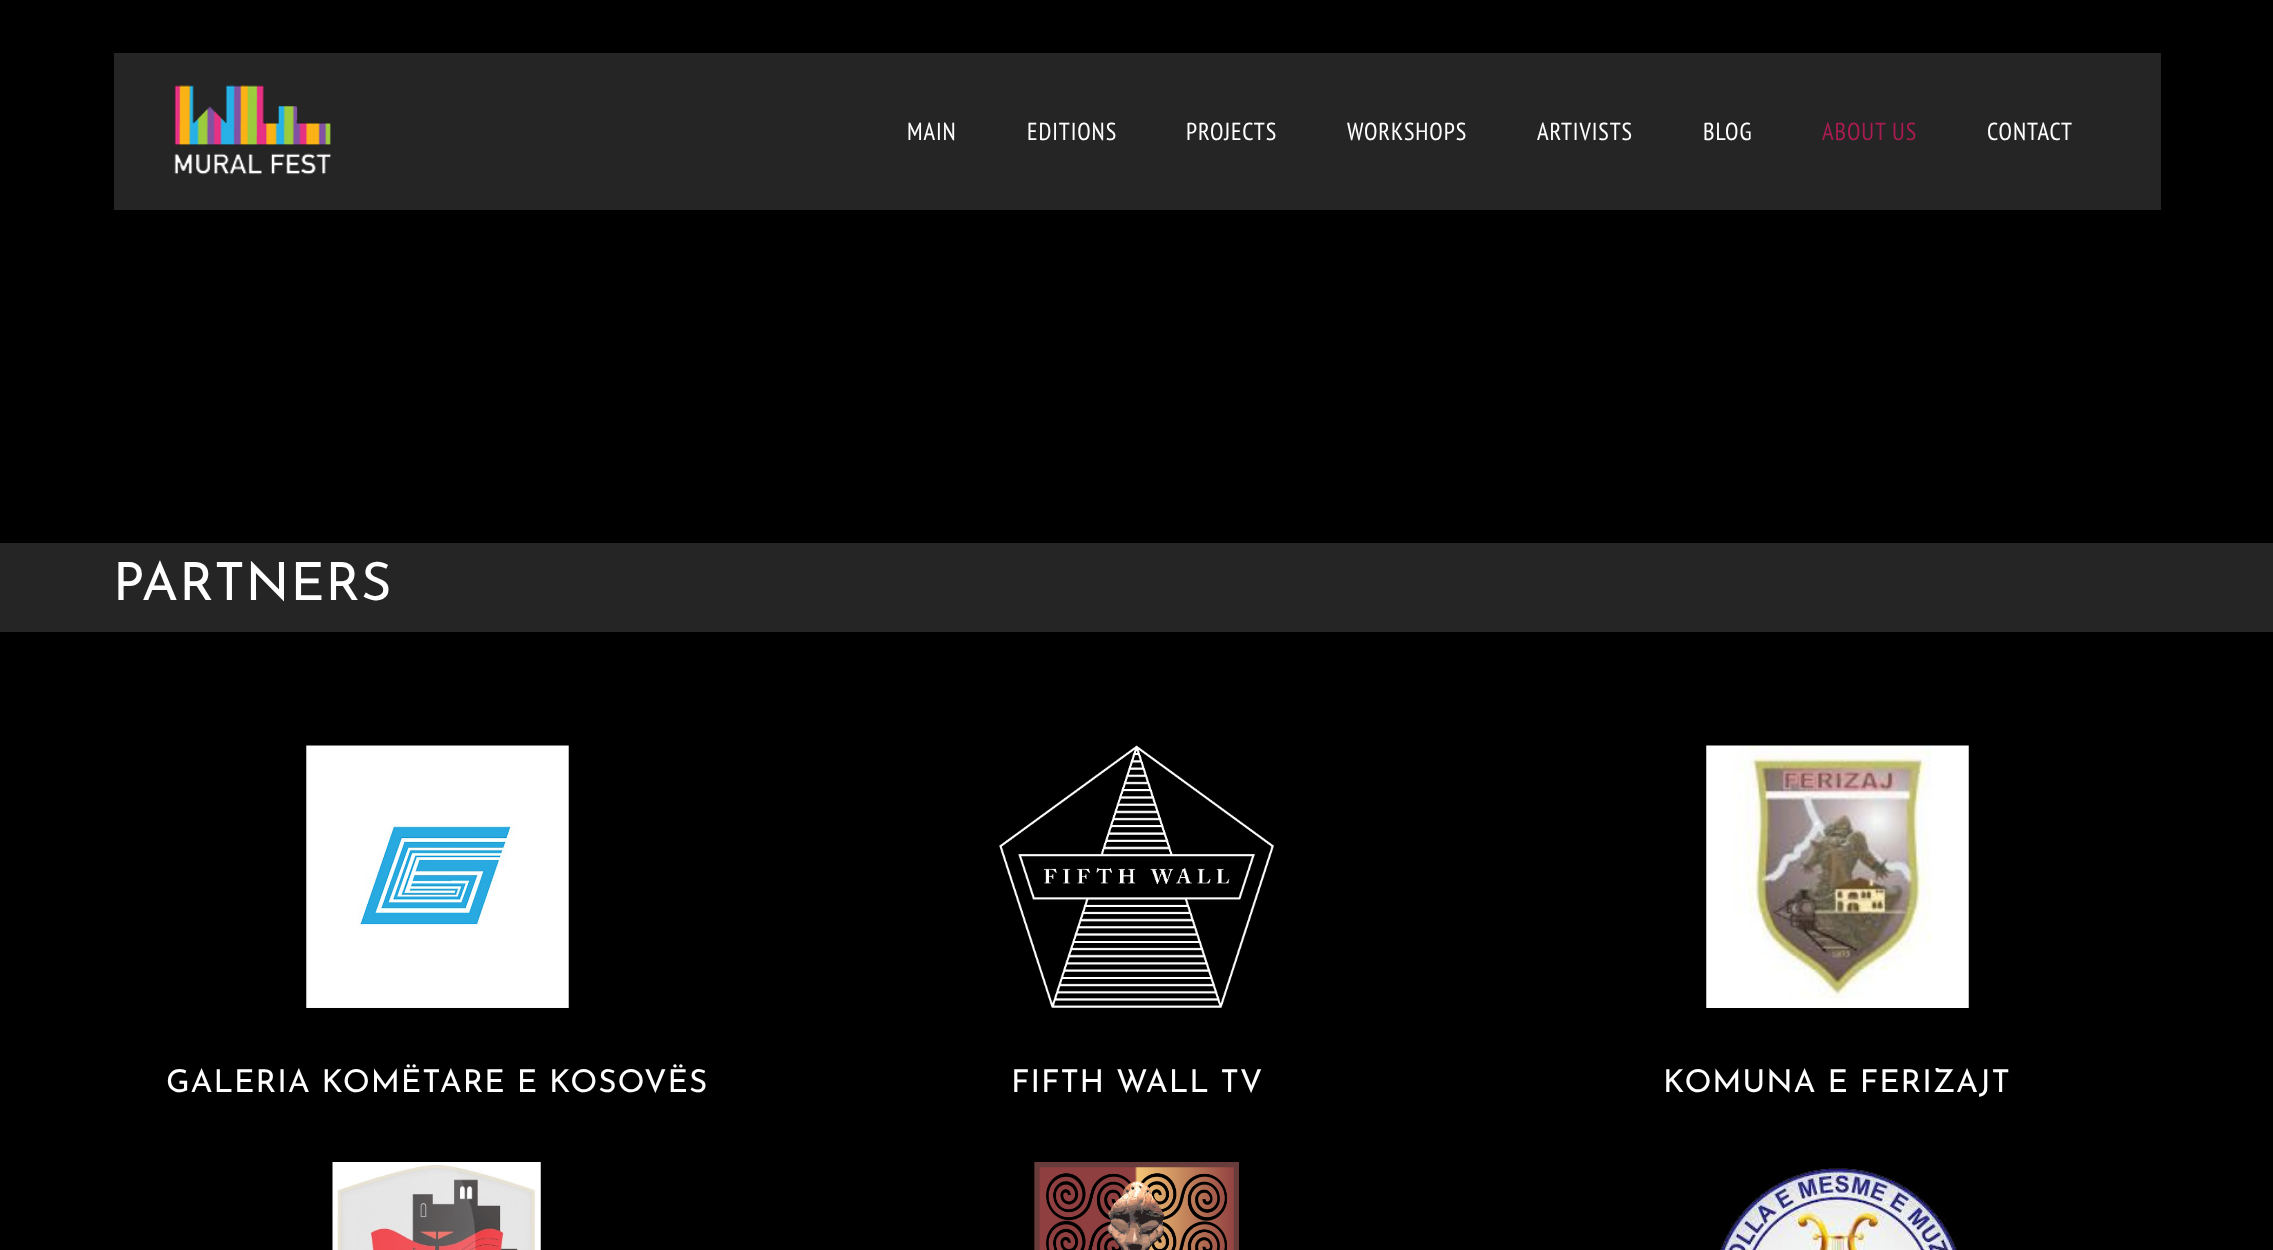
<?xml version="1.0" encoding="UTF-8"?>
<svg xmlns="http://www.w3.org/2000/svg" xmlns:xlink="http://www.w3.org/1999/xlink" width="2273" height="1250">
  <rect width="100%" height="100%" fill="#000000" />
  <rect x="114" y="53" width="2047" height="157" fill="#252525" />
  <image x="174" y="85" width="157" height="90" xlink:href="image1.png" />
  <rect y="543" width="2273" height="89" fill="#252525" />
  <image x="306" y="745" width="263" height="263" xlink:href="image2.png" />
  <image x="332" y="1162" width="209" height="88" xlink:href="image3.png" />
  <image x="999" y="745" width="275" height="263" xlink:href="image4.png" />
  <image x="1034" y="1162" width="205" height="88" xlink:href="image5.png" />
  <image x="1706" y="745" width="263" height="263" xlink:href="image6.png" />
  <image x="1720" y="1168" width="237" height="82" xlink:href="image7.png" />
  <text x="907" y="140" style="font-family: PT Sans Narrow; font-size: 24.5px; letter-spacing: 0.9px; fill: #ffffff">MAIN</text>
  <text x="1027" y="140" style="font-family: PT Sans Narrow; font-size: 24.5px; letter-spacing: 0.9px; fill: #ffffff">EDITIONS</text>
  <text x="1186" y="140" style="font-family: PT Sans Narrow; font-size: 24.5px; letter-spacing: 0.9px; fill: #ffffff">PROJECTS</text>
  <text x="1347" y="140" style="font-family: PT Sans Narrow; font-size: 24.5px; letter-spacing: 0.9px; fill: #ffffff">WORKSHOPS</text>
  <text x="1537" y="140" style="font-family: PT Sans Narrow; font-size: 24.5px; letter-spacing: 0.9px; fill: #ffffff">ARTIVISTS</text>
  <text x="1703" y="140" style="font-family: PT Sans Narrow; font-size: 24.5px; letter-spacing: 0.9px; fill: #ffffff">BLOG</text>
  <text x="1822" y="140" style="font-family: PT Sans Narrow; font-size: 24.5px; letter-spacing: 0.9px; fill: #a81c51">ABOUT US</text>
  <text x="1987" y="140" style="font-family: PT Sans Narrow; font-size: 24.5px; letter-spacing: 0.9px; fill: #ffffff">CONTACT</text>
  <text x="113" y="600" style="font-family: Josefin Sans; font-size: 52.5px; letter-spacing: 0.9px; fill: #ffffff">PARTNERS</text>
  <text x="166" y="1092" style="font-family: Josefin Sans; font-size: 31.5px; letter-spacing: 0.9px; fill: #ffffff">GALERIA KOMËTARE E KOSOVËS</text>
  <text x="1011" y="1092" style="font-family: Josefin Sans; font-size: 31.5px; letter-spacing: 0.9px; fill: #ffffff">FIFTH WALL TV</text>
  <text x="1663" y="1092" style="font-family: Josefin Sans; font-size: 31.5px; letter-spacing: 0.9px; fill: #ffffff">KOMUNA E FERIZAJT</text>
</svg>
